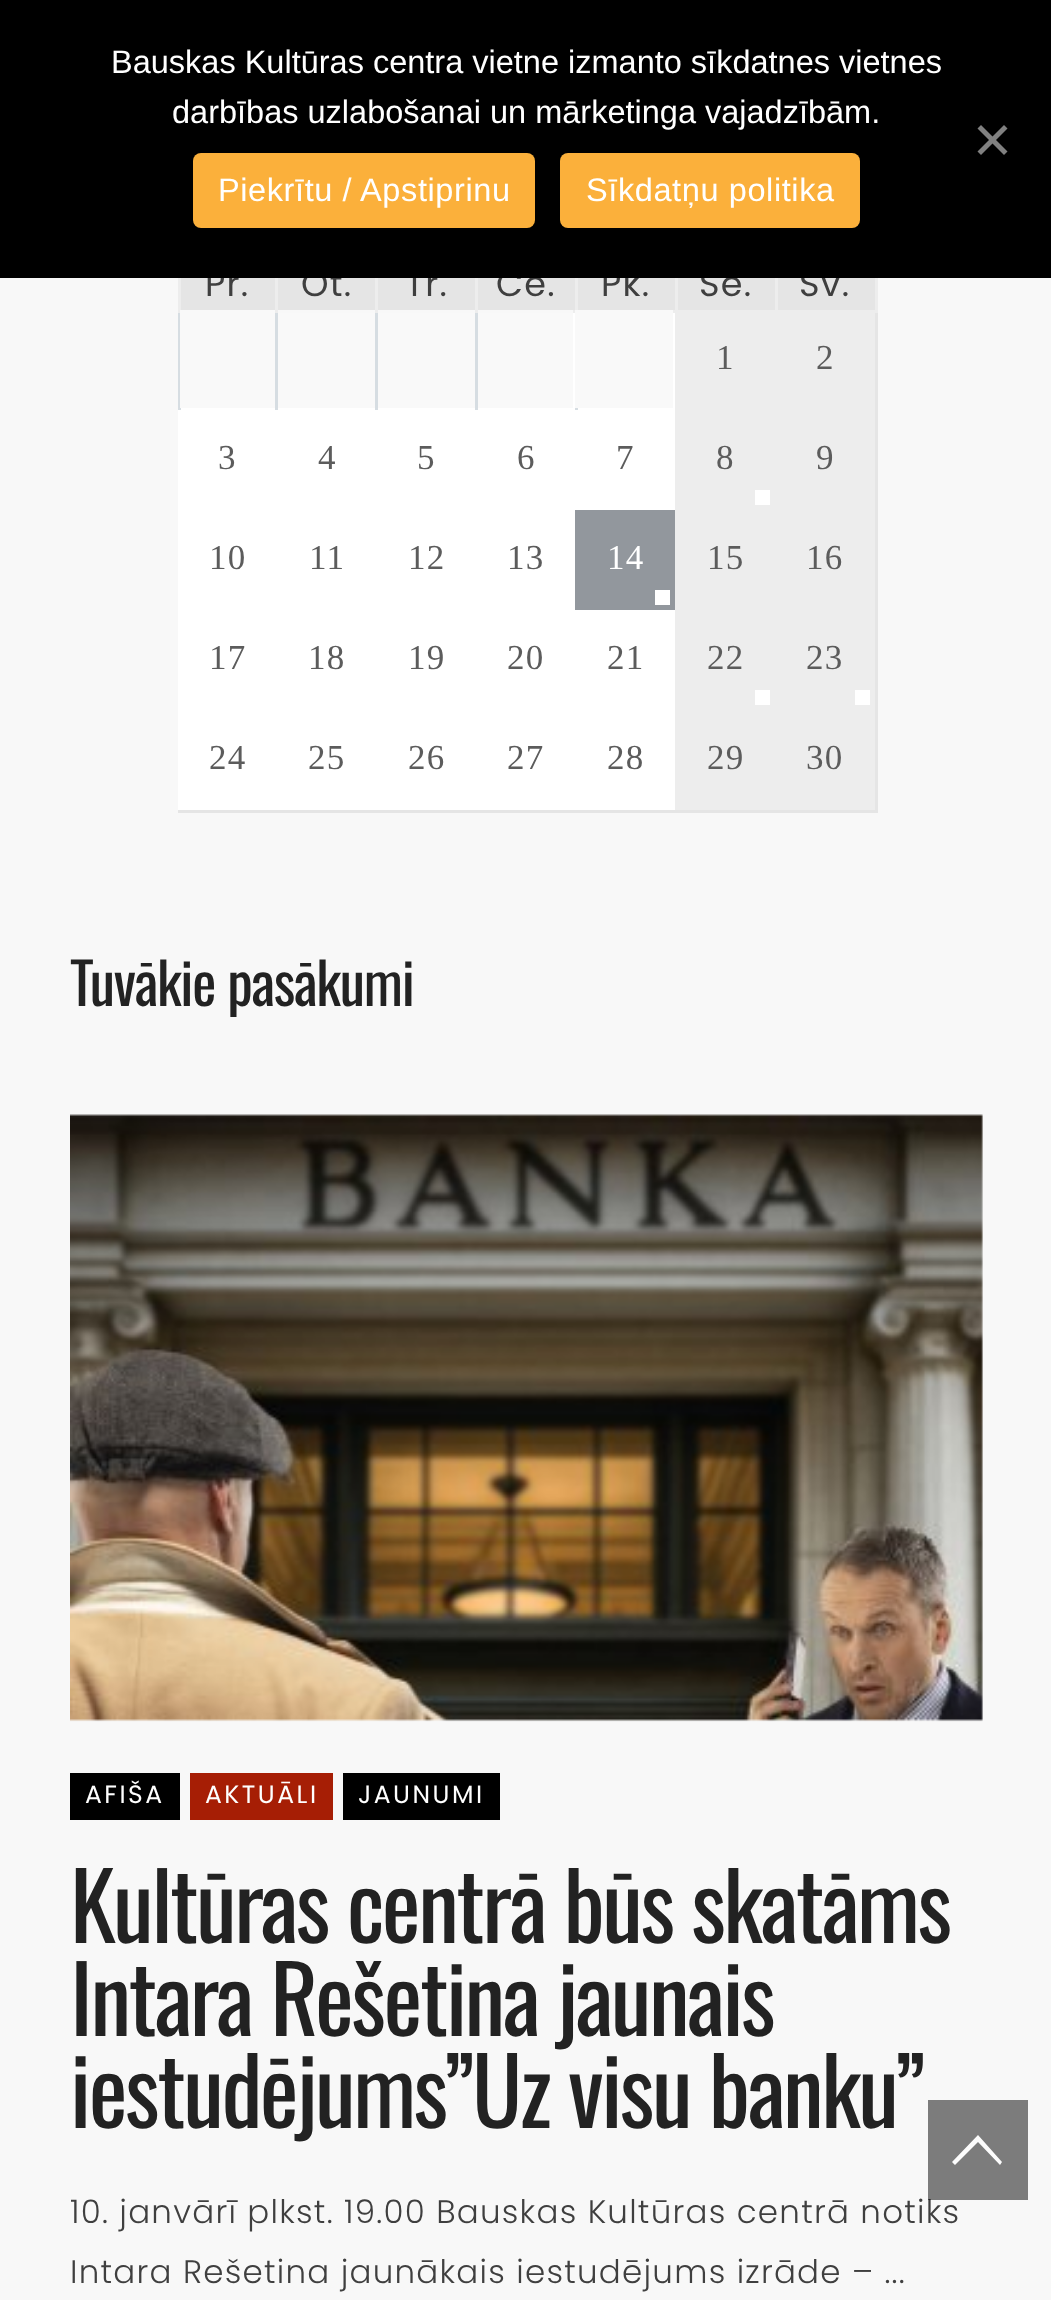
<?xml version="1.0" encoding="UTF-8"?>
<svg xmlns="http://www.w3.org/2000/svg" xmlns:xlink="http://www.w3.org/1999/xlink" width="1051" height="2300">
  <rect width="100%" height="100%" fill="#f8f8f8" />
  <rect x="181" y="313" width="494" height="97" fill="#ffffff" />
  <rect x="181" y="278" width="94" height="32" fill="#e5e5e5" />
  <rect x="178" y="310" width="3" height="103" fill="#d6dde2" />
  <rect x="178" y="278" width="3" height="35" fill="#ededed" />
  <rect x="278" y="278" width="97" height="32" fill="#e5e5e5" />
  <rect x="275" y="310" width="3" height="103" fill="#d6dde2" />
  <rect x="275" y="278" width="3" height="35" fill="#ededed" />
  <rect x="378" y="278" width="97" height="32" fill="#e5e5e5" />
  <rect x="375" y="310" width="3" height="103" fill="#d6dde2" />
  <rect x="375" y="278" width="3" height="35" fill="#ededed" />
  <rect x="478" y="278" width="97" height="32" fill="#e5e5e5" />
  <rect x="575" y="278" width="3" height="35" fill="#ededed" />
  <rect x="573" y="310" width="5" height="3" fill="#ededed" />
  <rect x="475" y="310" width="3" height="103" fill="#d6dde2" />
  <rect x="475" y="278" width="3" height="35" fill="#ededed" />
  <rect x="578" y="278" width="97" height="32" fill="#e5e5e5" />
  <rect x="675" y="278" width="3" height="35" fill="#ededed" />
  <rect x="673" y="310" width="5" height="3" fill="#ededed" />
  <rect x="678" y="278" width="97" height="32" fill="#e5e5e5" />
  <rect x="778" y="278" width="97" height="32" fill="#e5e5e5" />
  <rect x="875" y="310" width="3" height="503" fill="#e5e5e5" />
  <rect x="875" y="278" width="3" height="35" fill="#ededed" />
  <rect x="775" y="278" width="3" height="35" fill="#ededed" />
  <rect x="180" y="310" width="95" height="98" fill="#f9f9f9" />
  <rect x="278" y="313" width="97" height="95" fill="#f9f9f9" />
  <rect x="378" y="313" width="97" height="95" fill="#f9f9f9" />
  <rect x="575" y="408" width="3" height="5" fill="#d6dde2" />
  <rect x="478" y="313" width="95" height="95" fill="#f9f9f9" />
  <rect x="575" y="310" width="98" height="98" fill="#f9f9f9" />
  <rect x="675" y="310" width="200" height="100" fill="#ededed" />
  <rect x="178" y="410" width="497" height="100" fill="#ffffff" />
  <rect x="675" y="410" width="200" height="100" fill="#ededed" />
  <rect x="755" y="490" width="15" height="15" fill="#ffffff" />
  <rect x="178" y="510" width="397" height="100" fill="#ffffff" />
  <rect x="575" y="510" width="100" height="100" fill="#92979d" />
  <rect x="655" y="590" width="15" height="15" fill="#ffffff" />
  <rect x="675" y="510" width="200" height="100" fill="#ededed" />
  <rect x="178" y="610" width="497" height="100" fill="#ffffff" />
  <rect x="675" y="610" width="200" height="100" fill="#ededed" />
  <rect x="755" y="690" width="15" height="15" fill="#ffffff" />
  <rect x="855" y="690" width="15" height="15" fill="#ffffff" />
  <rect x="178" y="710" width="497" height="100" fill="#ffffff" />
  <rect x="675" y="710" width="200" height="100" fill="#ededed" />
  <rect x="178" y="810" width="700" height="3" fill="#e5e5e5" />
  <image x="70" y="1114" width="913" height="608" xlink:href="image1.png" />
  <rect x="70" y="1773" width="110" height="47" fill="#000000" />
  <rect x="190" y="1773" width="143" height="47" fill="#a61e05" />
  <rect x="343" y="1773" width="157" height="47" fill="#000000" />
  <text x="205" y="296" style="font-family: Poppins; font-size: 35px; letter-spacing: 1.25px; fill: #3f3f3f">Pr.</text>
  <text x="301" y="296" style="font-family: Poppins; font-size: 35px; letter-spacing: 1.25px; fill: #3f3f3f">Ot.</text>
  <text x="405" y="296" style="font-family: Poppins; font-size: 35px; letter-spacing: 1.25px; fill: #3f3f3f">Tr.</text>
  <text x="496" y="296" style="font-family: Poppins; font-size: 35px; letter-spacing: 1.25px; fill: #3f3f3f">Ce.</text>
  <text x="601" y="296" style="font-family: Poppins; font-size: 35px; letter-spacing: 1.25px; fill: #3f3f3f">Pk.</text>
  <text x="699" y="296" style="font-family: Poppins; font-size: 35px; letter-spacing: 1.25px; fill: #3f3f3f">Se.</text>
  <text x="799" y="296" style="font-family: Poppins; font-size: 35px; letter-spacing: 1.25px; fill: #3f3f3f">Sv.</text>
  <rect width="1051" height="278" fill="#000000" />
  <path d="M 1004 125 l 3.5 3.5 l -26.5 26.5 l -3.5 -3.5 z" fill="#808080" />
  <path d="M 977.5 128.5 l 3.5 -3.5 l 26.5 26.5 l -3.5 3.5 z" fill="#808080" />
  <rect x="560" y="153" width="300" height="75" rx="8" fill="#fbb03b" />
  <text x="586" y="201" style="font-family: Liberation Sans; font-size: 32.5px; letter-spacing: 0.6px; fill: #ffffff">Sīkdatņu politika</text>
  <rect x="193" y="153" width="342" height="75" rx="8" fill="#fbb03b" />
  <text x="218" y="201" style="font-family: Liberation Sans; font-size: 32.5px; letter-spacing: 0.6px; fill: #ffffff">Piekrītu / Apstiprinu</text>
  <text x="172" y="123" style="font-family: Liberation Sans; font-size: 32.5px; fill: #ffffff">darbības uzlabošanai un mārketinga vajadzībām.</text>
  <text x="111" y="73" style="font-family: Liberation Sans; font-size: 32.5px; fill: #ffffff">Bauskas Kultūras centra vietne izmanto sīkdatnes vietnes</text>
  <text x="716" y="369" style="font-family: Liberation Serif; font-size: 35px; letter-spacing: 1.25px; fill: #5c5c5c">1</text>
  <text x="816" y="369" style="font-family: Liberation Serif; font-size: 35px; letter-spacing: 1.25px; fill: #5c5c5c">2</text>
  <text x="218" y="469" style="font-family: Liberation Serif; font-size: 35px; letter-spacing: 1.25px; fill: #5c5c5c">3</text>
  <text x="318" y="469" style="font-family: Liberation Serif; font-size: 35px; letter-spacing: 1.25px; fill: #5c5c5c">4</text>
  <text x="417" y="469" style="font-family: Liberation Serif; font-size: 35px; letter-spacing: 1.25px; fill: #5c5c5c">5</text>
  <text x="517" y="469" style="font-family: Liberation Serif; font-size: 35px; letter-spacing: 1.25px; fill: #5c5c5c">6</text>
  <text x="616" y="469" style="font-family: Liberation Serif; font-size: 35px; letter-spacing: 1.25px; fill: #5c5c5c">7</text>
  <text x="716" y="469" style="font-family: Liberation Serif; font-size: 35px; letter-spacing: 1.25px; fill: #5c5c5c">8</text>
  <text x="816" y="469" style="font-family: Liberation Serif; font-size: 35px; letter-spacing: 1.25px; fill: #5c5c5c">9</text>
  <text x="209" y="569" style="font-family: Liberation Serif; font-size: 35px; letter-spacing: 1.25px; fill: #5c5c5c">10</text>
  <text x="309" y="569" style="font-family: Liberation Serif; font-size: 35px; letter-spacing: 1.25px; fill: #5c5c5c">11</text>
  <text x="408" y="569" style="font-family: Liberation Serif; font-size: 35px; letter-spacing: 1.25px; fill: #5c5c5c">12</text>
  <text x="507" y="569" style="font-family: Liberation Serif; font-size: 35px; letter-spacing: 1.25px; fill: #5c5c5c">13</text>
  <text x="607" y="569" style="font-family: Liberation Serif; font-size: 35px; letter-spacing: 1.25px; fill: #ffffff">14</text>
  <text x="707" y="569" style="font-family: Liberation Serif; font-size: 35px; letter-spacing: 1.25px; fill: #5c5c5c">15</text>
  <text x="806" y="569" style="font-family: Liberation Serif; font-size: 35px; letter-spacing: 1.25px; fill: #5c5c5c">16</text>
  <text x="209" y="669" style="font-family: Liberation Serif; font-size: 35px; letter-spacing: 1.25px; fill: #5c5c5c">17</text>
  <text x="308" y="669" style="font-family: Liberation Serif; font-size: 35px; letter-spacing: 1.25px; fill: #5c5c5c">18</text>
  <text x="408" y="669" style="font-family: Liberation Serif; font-size: 35px; letter-spacing: 1.25px; fill: #5c5c5c">19</text>
  <text x="507" y="669" style="font-family: Liberation Serif; font-size: 35px; letter-spacing: 1.25px; fill: #5c5c5c">20</text>
  <text x="607" y="669" style="font-family: Liberation Serif; font-size: 35px; letter-spacing: 1.25px; fill: #5c5c5c">21</text>
  <text x="707" y="669" style="font-family: Liberation Serif; font-size: 35px; letter-spacing: 1.25px; fill: #5c5c5c">22</text>
  <text x="806" y="669" style="font-family: Liberation Serif; font-size: 35px; letter-spacing: 1.25px; fill: #5c5c5c">23</text>
  <text x="209" y="769" style="font-family: Liberation Serif; font-size: 35px; letter-spacing: 1.25px; fill: #5c5c5c">24</text>
  <text x="308" y="769" style="font-family: Liberation Serif; font-size: 35px; letter-spacing: 1.25px; fill: #5c5c5c">25</text>
  <text x="408" y="769" style="font-family: Liberation Serif; font-size: 35px; letter-spacing: 1.25px; fill: #5c5c5c">26</text>
  <text x="507" y="769" style="font-family: Liberation Serif; font-size: 35px; letter-spacing: 1.25px; fill: #5c5c5c">27</text>
  <text x="607" y="769" style="font-family: Liberation Serif; font-size: 35px; letter-spacing: 1.25px; fill: #5c5c5c">28</text>
  <text x="707" y="769" style="font-family: Liberation Serif; font-size: 35px; letter-spacing: 1.25px; fill: #5c5c5c">29</text>
  <text x="806" y="769" style="font-family: Liberation Serif; font-size: 35px; letter-spacing: 1.25px; fill: #5c5c5c">30</text>
  <text x="70" y="1006" style="font-family: Oswald; font-size: 57.5px; letter-spacing: -1.25px; fill: #222222">Tuvākie pasākumi</text>
  <text x="85" y="1803" style="font-family: Poppins; font-size: 25px; letter-spacing: 2.5px; fill: #ffffff">AFIŠA</text>
  <text x="205" y="1803" style="font-family: Poppins; font-size: 25px; letter-spacing: 2.5px; fill: #ffffff">AKTUĀLI</text>
  <text x="358" y="1803" style="font-family: Poppins; font-size: 25px; letter-spacing: 2.5px; fill: #ffffff">JAUNUMI</text>
  <text x="70" y="1943" style="font-family: Oswald; font-size: 92.5px; letter-spacing: -2.5px; fill: #222222">Kultūras centrā būs skatāms</text>
  <text x="70" y="2036" style="font-family: Oswald; font-size: 92.5px; letter-spacing: -2.5px; fill: #222222">Intara Rešetina jaunais</text>
  <text x="70" y="2128" style="font-family: Oswald; font-size: 92.5px; letter-spacing: -2.5px; fill: #222222">iestudējums”Uz visu banku”</text>
  <text x="70" y="2223" style="font-family: Poppins; font-size: 32.5px; font-weight: 300; letter-spacing: 1.25px; fill: #3f3f3f">10. janvārī plkst. 19.00 Bauskas Kultūras centrā notiks</text>
  <text x="70" y="2283" style="font-family: Poppins; font-size: 32.5px; font-weight: 300; letter-spacing: 1.25px; fill: #3f3f3f">Intara Rešetina jaunākais iestudējums izrāde – ...</text>
  <rect x="928" y="2100" width="100" height="100" fill="#000000" fill-opacity="0.5" />
  <path d="M 1000 2165 l -22 -23 l -23 23 l -3 -3 l 26 -27 l 24 27 z" fill="#fcfcfc" />
</svg>
